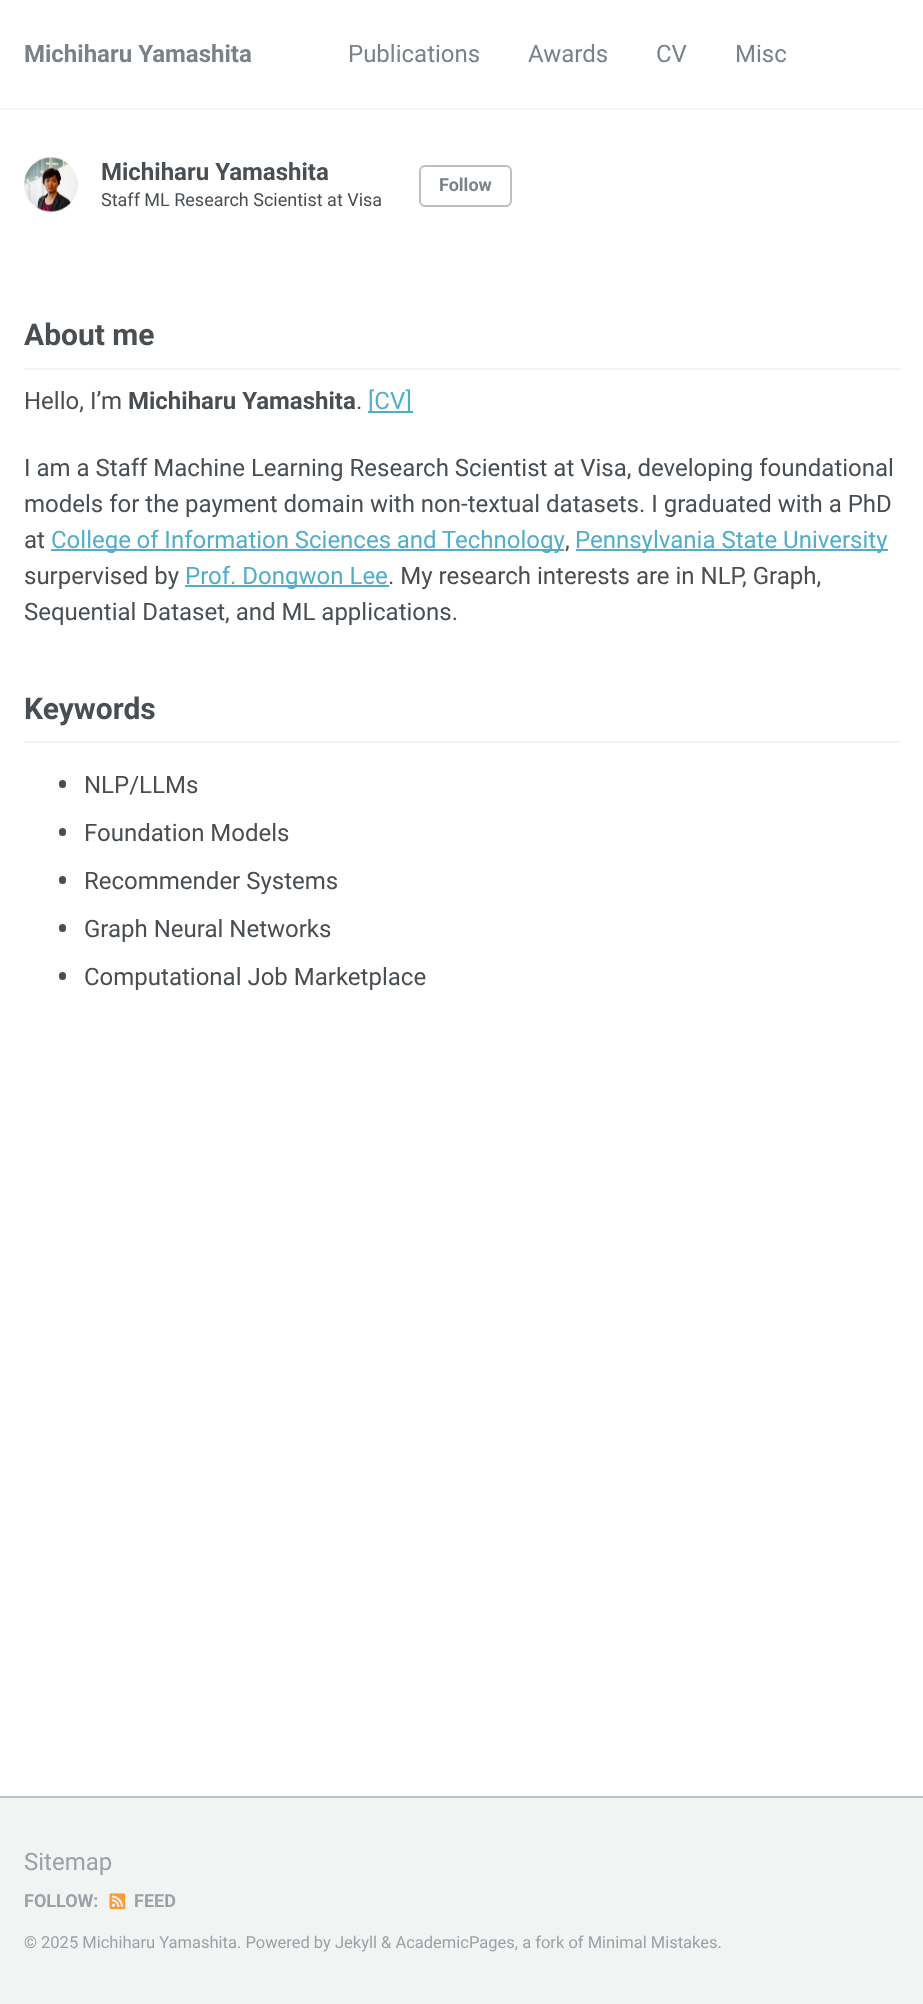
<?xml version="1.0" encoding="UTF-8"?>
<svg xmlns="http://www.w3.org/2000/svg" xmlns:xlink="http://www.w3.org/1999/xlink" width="923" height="2004">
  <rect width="100%" height="100%" fill="#ffffff" />
  <rect y="108" width="923" height="2" fill="#f2f3f3" />
  <image x="24" y="157" width="54" height="55" xlink:href="image1.png" />
  <rect x="420" y="166" width="91" height="40" rx="5" fill="none" stroke="#bdc1c4" stroke-width="2" />
  <rect x="24" y="368" width="876" height="2" fill="#f2f3f3" />
  <rect x="368" y="411" width="45" height="2" fill="#52adc8" />
  <rect x="51" y="549" width="513" height="2" fill="#52adc8" />
  <rect x="576" y="549" width="312" height="2" fill="#52adc8" />
  <rect x="185" y="585" width="204" height="2" fill="#52adc8" />
  <rect x="24" y="741" width="876" height="2" fill="#f2f3f3" />
  <rect x="59" y="780" width="7" height="8" rx="3.5" fill="#494e52" />
  <rect x="59" y="828" width="7" height="8" rx="3.5" fill="#494e52" />
  <rect x="59" y="876" width="7" height="8" rx="3.5" fill="#494e52" />
  <rect x="59" y="924" width="7" height="8" rx="3.5" fill="#494e52" />
  <rect x="59" y="972" width="7" height="8" rx="3.5" fill="#494e52" />
  <rect y="1798" width="923" height="206" fill="#f2f3f3" />
  <rect y="1796" width="923" height="2" fill="#bdc1c4" />
  <image x="109" y="1893" width="17" height="17" xlink:href="image2.png" />
  <text x="24" y="62" style="font-family: Roboto; font-size: 24px; font-weight: bold; fill: #7a8288">Michiharu Yamashita</text>
  <text x="348" y="62" style="font-family: Roboto; font-size: 24px; fill: #7a8288">Publications</text>
  <text x="528" y="62" style="font-family: Roboto; font-size: 24px; fill: #7a8288">Awards</text>
  <text x="656" y="62" style="font-family: Roboto; font-size: 24px; fill: #7a8288">CV</text>
  <text x="735" y="62" style="font-family: Roboto; font-size: 24px; fill: #7a8288">Misc</text>
  <text x="101" y="180" style="font-family: Roboto; font-size: 24px; font-weight: bold; fill: #494e52">Michiharu Yamashita</text>
  <text x="101" y="206" style="font-family: Roboto; font-size: 18px; fill: #494e52">Staff ML Research Scientist at Visa</text>
  <text x="439" y="191" style="font-family: Roboto; font-size: 18px; font-weight: bold; fill: #7a8288">Follow</text>
  <text x="24" y="345" style="font-family: Roboto; font-size: 30px; font-weight: bold; fill: #494e52">About me</text>
  <text x="24" y="409" style="font-family: Roboto; font-size: 24px; fill: #494e52">Hello, I’m</text>
  <text x="128" y="409" style="font-family: Roboto; font-size: 24px; font-weight: bold; fill: #494e52">Michiharu Yamashita</text>
  <text x="356" y="409" style="font-family: Roboto; font-size: 24px; fill: #494e52">.</text>
  <text x="368" y="409" style="font-family: Roboto; font-size: 24px; fill: #52adc8">[CV]</text>
  <text x="24" y="476" style="font-family: Roboto; font-size: 24px; fill: #494e52">I am a Staff Machine Learning Research Scientist at Visa, developing foundational</text>
  <text x="24" y="512" style="font-family: Roboto; font-size: 24px; fill: #494e52">models for the payment domain with non-textual datasets. I graduated with a PhD</text>
  <text x="24" y="548" style="font-family: Roboto; font-size: 24px; fill: #494e52">at</text>
  <text x="51" y="548" word-spacing="-0.25" style="font-family: Roboto; font-size: 24px; fill: #52adc8">College of Information Sciences and Technology</text>
  <text x="565" y="548" style="font-family: Roboto; font-size: 24px; fill: #494e52">,</text>
  <text x="575" y="548" style="font-family: Roboto; font-size: 24px; fill: #52adc8">Pennsylvania State University</text>
  <text x="24" y="584" style="font-family: Roboto; font-size: 24px; fill: #494e52">surpervised by</text>
  <text x="185" y="584" style="font-family: Roboto; font-size: 24px; fill: #52adc8">Prof. Dongwon Lee</text>
  <text x="388" y="584" style="font-family: Roboto; font-size: 24px; fill: #494e52">. My research interests are in NLP, Graph,</text>
  <text x="24" y="620" style="font-family: Roboto; font-size: 24px; fill: #494e52">Sequential Dataset, and ML applications.</text>
  <text x="24" y="719" style="font-family: Roboto; font-size: 30px; font-weight: bold; fill: #494e52">Keywords</text>
  <text x="84" y="793" style="font-family: Roboto; font-size: 24px; fill: #494e52">NLP/LLMs</text>
  <text x="84" y="841" style="font-family: Roboto; font-size: 24px; fill: #494e52">Foundation Models</text>
  <text x="84" y="889" style="font-family: Roboto; font-size: 24px; fill: #494e52">Recommender Systems</text>
  <text x="84" y="937" style="font-family: Roboto; font-size: 24px; fill: #494e52">Graph Neural Networks</text>
  <text x="84" y="985" style="font-family: Roboto; font-size: 24px; fill: #494e52">Computational Job Marketplace</text>
  <text x="24" y="1870" style="font-family: Roboto; font-size: 24px; fill: #9ba1a6">Sitemap</text>
  <text x="24" y="1907" style="font-family: Roboto; font-size: 18px; font-weight: bold; fill: #9ba1a6">FOLLOW:</text>
  <text x="134" y="1907" style="font-family: Roboto; font-size: 18px; font-weight: bold; fill: #9ba1a6">FEED</text>
  <text x="24" y="1948" style="font-family: Roboto; font-size: 16.5px; fill: #9ba1a6">© 2025 Michiharu Yamashita. Powered by Jekyll &amp; AcademicPages, a fork of Minimal Mistakes.</text>
</svg>
